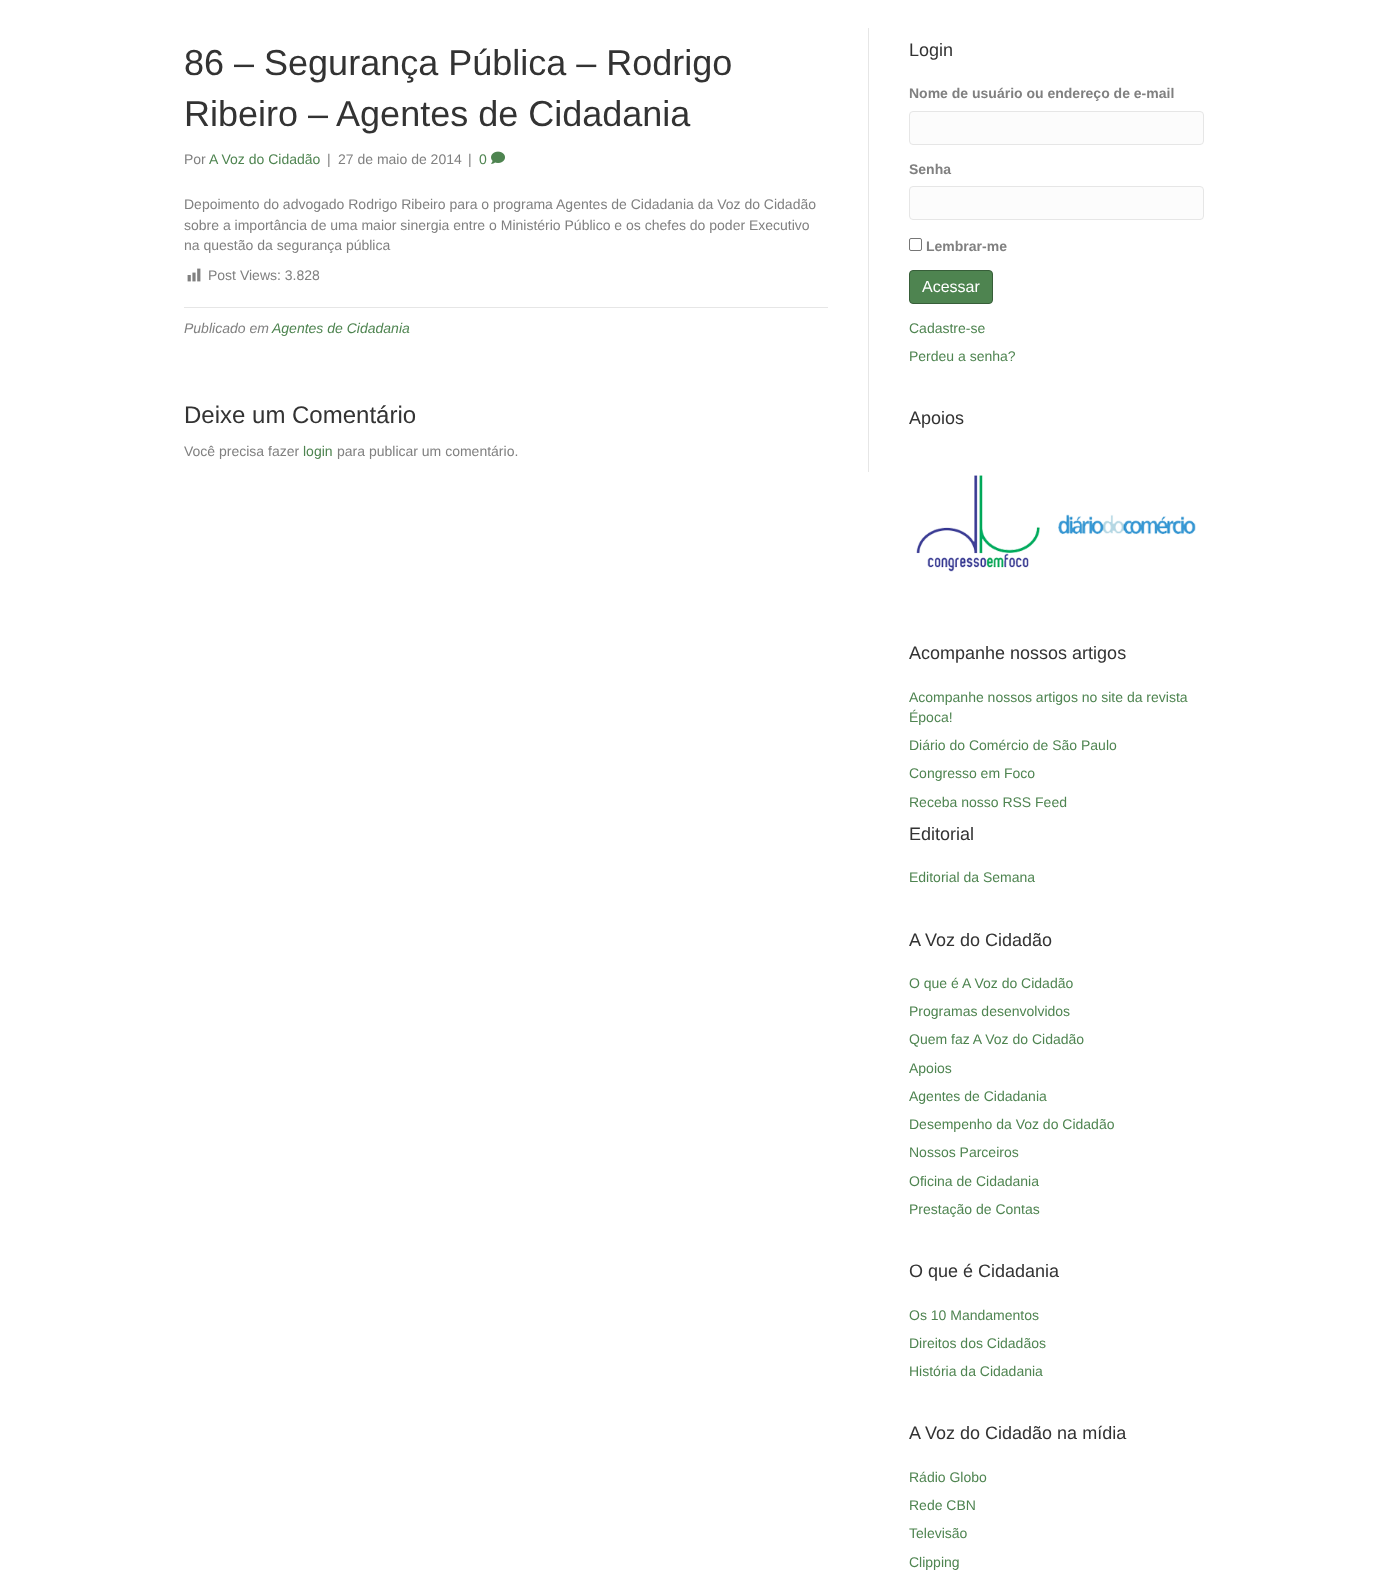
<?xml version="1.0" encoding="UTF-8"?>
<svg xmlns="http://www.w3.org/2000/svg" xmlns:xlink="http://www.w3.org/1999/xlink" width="1388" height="1585">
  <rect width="100%" height="100%" fill="#ffffff" />
  <rect x="868" y="28" width="1" height="444" fill="#e6e6e6" />
  <image x="491" y="151" width="14" height="13" xlink:href="image1.png" />
  <image x="187" y="268" width="14" height="14" xlink:href="image2.png" />
  <rect x="184" y="307" width="644" height="1" fill="#e6e6e6" />
  <rect x="909.5" y="111.5" width="294" height="33" rx="3.5" fill="#fcfcfc" stroke="#e6e6e6" />
  <rect x="909.5" y="186.5" width="294" height="33" rx="3.5" fill="#fcfcfc" stroke="#e6e6e6" />
  <rect x="909.5" y="238.5" width="12" height="12" rx="1.5" fill="none" stroke="#767676" />
  <rect x="909.5" y="270.5" width="83" height="33" rx="3.5" fill="#4e8450" stroke="#375e39" />
  <image x="916" y="475" width="124" height="97" xlink:href="image3.png" />
  <image x="1058" y="514" width="138" height="21" xlink:href="image4.png" />
  <text x="184" y="75" style="font-family: Liberation Sans; font-size: 36px; fill: #333333">86 – Segurança Pública – Rodrigo</text>
  <text x="184" y="126" style="font-family: Liberation Sans; font-size: 36px; fill: #333333">Ribeiro – Agentes de Cidadania</text>
  <text x="184" y="164" style="font-family: Liberation Sans; font-size: 14px; fill: #808080">Por</text>
  <text x="209" y="164" style="font-family: Liberation Sans; font-size: 14px; fill: #4e8450">A Voz do Cidadão</text>
  <text x="327" y="164" style="font-family: Liberation Sans; font-size: 14px; fill: #808080">|</text>
  <text x="338" y="164" style="font-family: Liberation Sans; font-size: 14px; fill: #808080">27 de maio de 2014</text>
  <text x="468" y="164" style="font-family: Liberation Sans; font-size: 14px; fill: #808080">|</text>
  <text x="479" y="164" style="font-family: Liberation Sans; font-size: 14px; fill: #4e8450">0</text>
  <text x="184" y="209" style="font-family: Liberation Sans; font-size: 14px; fill: #808080">Depoimento do advogado Rodrigo Ribeiro para o programa Agentes de Cidadania da Voz do Cidadão</text>
  <text x="184" y="230" style="font-family: Liberation Sans; font-size: 14px; fill: #808080">sobre a importância de uma maior sinergia entre o Ministério Público e os chefes do poder Executivo</text>
  <text x="184" y="250" style="font-family: Liberation Sans; font-size: 14px; fill: #808080">na questão da segurança pública</text>
  <text x="208" y="280" style="font-family: Liberation Sans; font-size: 14px; fill: #808080">Post Views: 3.828</text>
  <text x="184" y="333" style="font-family: Liberation Sans; font-size: 14px; font-style: italic; fill: #808080">Publicado em</text>
  <text x="272" y="333" style="font-family: Liberation Sans; font-size: 14px; font-style: italic; fill: #4e8450">Agentes de Cidadania</text>
  <text x="184" y="423" style="font-family: Liberation Sans; font-size: 24px; fill: #333333">Deixe um Comentário</text>
  <text x="184" y="456" style="font-family: Liberation Sans; font-size: 14px; fill: #808080">Você precisa fazer</text>
  <text x="303" y="456" style="font-family: Liberation Sans; font-size: 14px; fill: #4e8450">login</text>
  <text x="337" y="456" style="font-family: Liberation Sans; font-size: 14px; fill: #808080">para publicar um comentário.</text>
  <text x="909" y="56" style="font-family: Liberation Sans; font-size: 18px; fill: #333333">Login</text>
  <text x="909" y="98" style="font-family: Liberation Sans; font-size: 14px; font-weight: bold; fill: #808080">Nome de usuário ou endereço de e-mail</text>
  <text x="909" y="174" style="font-family: Liberation Sans; font-size: 14px; font-weight: bold; fill: #808080">Senha</text>
  <text x="926" y="251" style="font-family: Liberation Sans; font-size: 14px; font-weight: bold; fill: #808080">Lembrar-me</text>
  <text x="922" y="292" style="font-family: Liberation Sans; font-size: 16px; fill: #ffffff">Acessar</text>
  <text x="909" y="333" style="font-family: Liberation Sans; font-size: 14px; fill: #4e8450">Cadastre-se</text>
  <text x="909" y="361" style="font-family: Liberation Sans; font-size: 14px; fill: #4e8450">Perdeu a senha?</text>
  <text x="909" y="424" style="font-family: Liberation Sans; font-size: 18px; fill: #333333">Apoios</text>
  <text x="909" y="659" style="font-family: Liberation Sans; font-size: 18px; fill: #333333">Acompanhe nossos artigos</text>
  <text x="909" y="702" style="font-family: Liberation Sans; font-size: 14px; fill: #4e8450">Acompanhe nossos artigos no site da revista</text>
  <text x="909" y="722" style="font-family: Liberation Sans; font-size: 14px; fill: #4e8450">Época!</text>
  <text x="909" y="750" style="font-family: Liberation Sans; font-size: 14px; fill: #4e8450">Diário do Comércio de São Paulo</text>
  <text x="909" y="778" style="font-family: Liberation Sans; font-size: 14px; fill: #4e8450">Congresso em Foco</text>
  <text x="909" y="807" style="font-family: Liberation Sans; font-size: 14px; fill: #4e8450">Receba nosso RSS Feed</text>
  <text x="909" y="840" style="font-family: Liberation Sans; font-size: 18px; fill: #333333">Editorial</text>
  <text x="909" y="882" style="font-family: Liberation Sans; font-size: 14px; fill: #4e8450">Editorial da Semana</text>
  <text x="909" y="946" style="font-family: Liberation Sans; font-size: 18px; fill: #333333">A Voz do Cidadão</text>
  <text x="909" y="988" style="font-family: Liberation Sans; font-size: 14px; fill: #4e8450">O que é A Voz do Cidadão</text>
  <text x="909" y="1016" style="font-family: Liberation Sans; font-size: 14px; fill: #4e8450">Programas desenvolvidos</text>
  <text x="909" y="1044" style="font-family: Liberation Sans; font-size: 14px; fill: #4e8450">Quem faz A Voz do Cidadão</text>
  <text x="909" y="1073" style="font-family: Liberation Sans; font-size: 14px; fill: #4e8450">Apoios</text>
  <text x="909" y="1101" style="font-family: Liberation Sans; font-size: 14px; fill: #4e8450">Agentes de Cidadania</text>
  <text x="909" y="1129" style="font-family: Liberation Sans; font-size: 14px; fill: #4e8450">Desempenho da Voz do Cidadão</text>
  <text x="909" y="1157" style="font-family: Liberation Sans; font-size: 14px; fill: #4e8450">Nossos Parceiros</text>
  <text x="909" y="1186" style="font-family: Liberation Sans; font-size: 14px; fill: #4e8450">Oficina de Cidadania</text>
  <text x="909" y="1214" style="font-family: Liberation Sans; font-size: 14px; fill: #4e8450">Prestação de Contas</text>
  <text x="909" y="1277" style="font-family: Liberation Sans; font-size: 18px; fill: #333333">O que é Cidadania</text>
  <text x="909" y="1320" style="font-family: Liberation Sans; font-size: 14px; fill: #4e8450">Os 10 Mandamentos</text>
  <text x="909" y="1348" style="font-family: Liberation Sans; font-size: 14px; fill: #4e8450">Direitos dos Cidadãos</text>
  <text x="909" y="1376" style="font-family: Liberation Sans; font-size: 14px; fill: #4e8450">História da Cidadania</text>
  <text x="909" y="1439" style="font-family: Liberation Sans; font-size: 18px; fill: #333333">A Voz do Cidadão na mídia</text>
  <text x="909" y="1482" style="font-family: Liberation Sans; font-size: 14px; fill: #4e8450">Rádio Globo</text>
  <text x="909" y="1510" style="font-family: Liberation Sans; font-size: 14px; fill: #4e8450">Rede CBN</text>
  <text x="909" y="1538" style="font-family: Liberation Sans; font-size: 14px; fill: #4e8450">Televisão</text>
  <text x="909" y="1567" style="font-family: Liberation Sans; font-size: 14px; fill: #4e8450">Clipping</text>
</svg>
